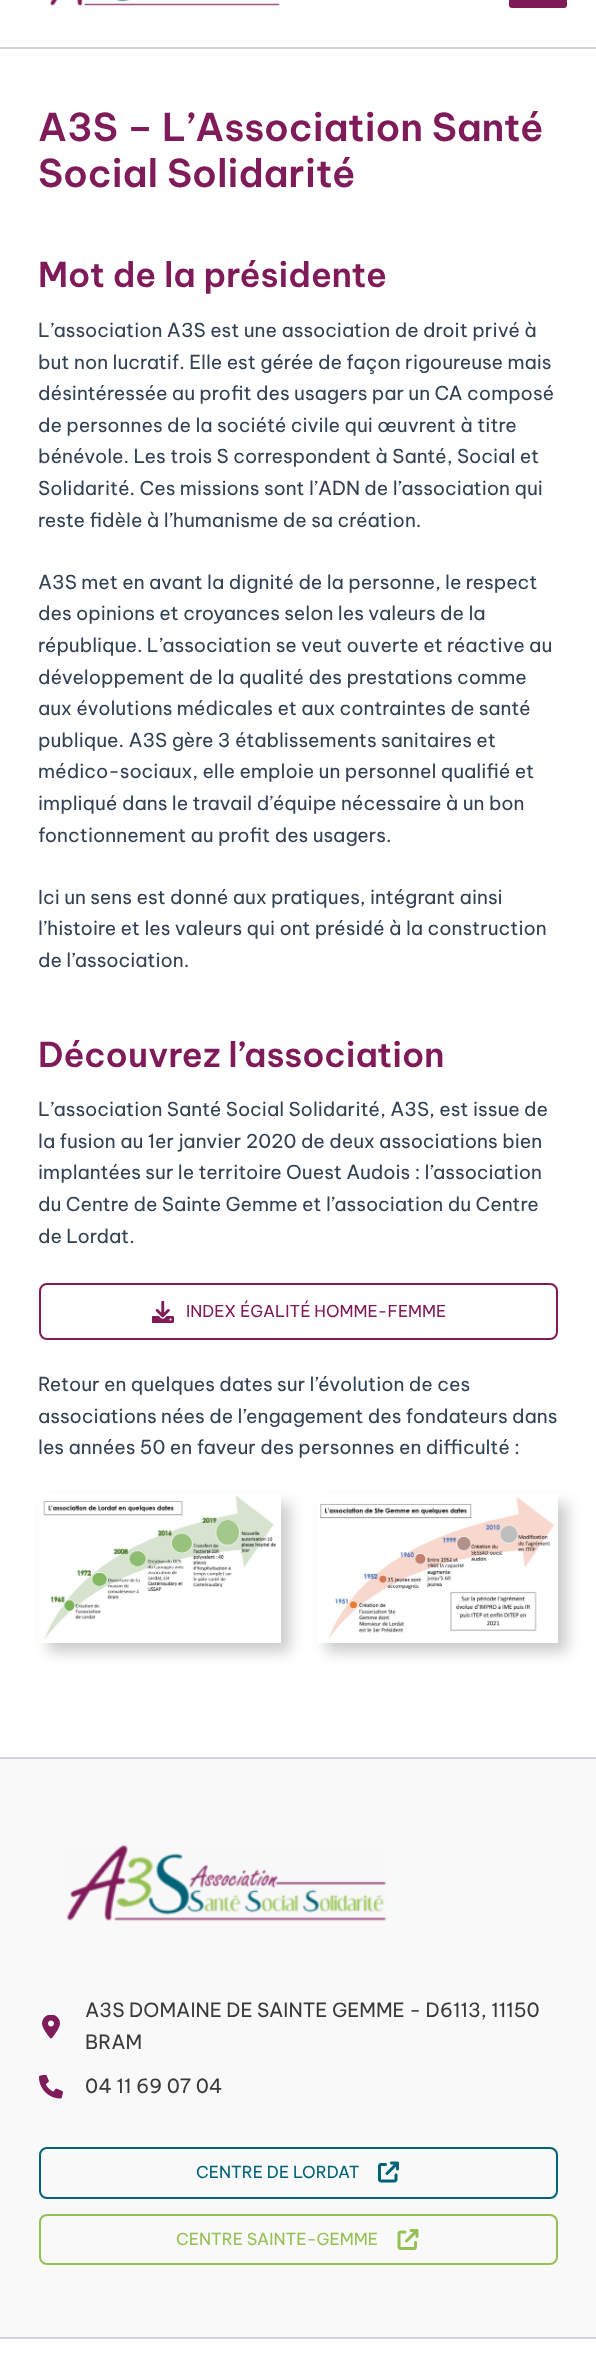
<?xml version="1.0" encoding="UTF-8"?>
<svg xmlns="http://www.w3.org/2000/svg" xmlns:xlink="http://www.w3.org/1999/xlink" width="596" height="2356">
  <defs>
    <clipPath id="clip1"><path d="M 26 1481 h 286 v 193 h -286 z m 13 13 h 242 v 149 h -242 z" clip-rule="evenodd" /></clipPath>
    <clipPath id="clip2"><path d="M 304 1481 h 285 v 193 h -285 z m 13 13 h 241 v 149 h -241 z" clip-rule="evenodd" /></clipPath>
  </defs>
  <rect width="100%" height="100%" fill="#ffffff" />
  <rect y="47" width="596" height="2" fill="#d1d5db" />
  <image x="50" y="0" width="230" height="6" xlink:href="image1.png" />
  <rect x="509" y="-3" width="58" height="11" rx="3" fill="#801b5a" />
  <rect x="40" y="1284" width="517" height="55" rx="7" fill="none" stroke="#801b5a" stroke-width="2" />
  <image x="152" y="1301" width="22" height="22" xlink:href="image2.png" />
  <g clip-path="url(#clip1)">
    <rect x="48" y="1503" width="242" height="149" fill="#000000" fill-opacity="0.2" filter="blur(7px)" />
  </g>
  <image x="43" y="1495" width="238" height="147" xlink:href="image3.png" />
  <g clip-path="url(#clip2)">
    <rect x="326" y="1503" width="241" height="149" fill="#000000" fill-opacity="0.2" filter="blur(7px)" />
  </g>
  <image x="320" y="1496" width="235" height="143" xlink:href="image4.png" />
  <rect y="1759" width="596" height="578" fill="#f9f9f9" />
  <rect y="1757" width="596" height="2" fill="#d1d5db" />
  <image x="66" y="1844" width="321" height="77" xlink:href="image5.png" />
  <image x="42" y="2015" width="18" height="24" xlink:href="image6.png" />
  <image x="39" y="2075" width="24" height="24" xlink:href="image7.png" />
  <rect x="40" y="2148" width="517" height="50" rx="7" fill="none" stroke="#006277" stroke-width="2" />
  <image x="378" y="2161" width="21" height="22" xlink:href="image8.png" />
  <rect x="40" y="2215" width="517" height="49" rx="7" fill="none" stroke="#95c154" stroke-width="2" />
  <image x="397" y="2229" width="22" height="21" xlink:href="image9.png" />
  <rect y="2337" width="596" height="2" fill="#d1d5db" />
  <text x="38" y="141" style="font-family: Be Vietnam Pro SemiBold; font-size: 38.25px; font-weight: 600; fill: #801b5a">A3S – L’Association Santé</text>
  <text x="38" y="187" style="font-family: Be Vietnam Pro SemiBold; font-size: 38.25px; font-weight: 600; fill: #801b5a">Social Solidarité</text>
  <text x="38" y="287" style="font-family: Be Vietnam Pro SemiBold; font-size: 34.25px; font-weight: 600; fill: #801b5a">Mot de la présidente</text>
  <text x="38" y="337" style="font-family: Be Vietnam Pro; font-size: 19.15px; fill: #334155">L’association A3S est une association de droit privé à</text>
  <text x="38" y="369" style="font-family: Be Vietnam Pro; font-size: 19.15px; fill: #334155">but non lucratif. Elle est gérée de façon rigoureuse mais</text>
  <text x="38" y="400" style="font-family: Be Vietnam Pro; font-size: 19.15px; fill: #334155">désintéressée au profit des usagers par un CA composé</text>
  <text x="38" y="432" style="font-family: Be Vietnam Pro; font-size: 19.15px; fill: #334155">de personnes de la société civile qui œuvrent à titre</text>
  <text x="38" y="463" style="font-family: Be Vietnam Pro; font-size: 19.15px; fill: #334155">bénévole. Les trois S correspondent à Santé, Social et</text>
  <text x="38" y="495" style="font-family: Be Vietnam Pro; font-size: 19.15px; fill: #334155">Solidarité. Ces missions sont l’ADN de l’association qui</text>
  <text x="38" y="527" style="font-family: Be Vietnam Pro; font-size: 19.15px; fill: #334155">reste fidèle à l’humanisme de sa création.</text>
  <text x="38" y="589" style="font-family: Be Vietnam Pro; font-size: 19.15px; fill: #334155">A3S met en avant la dignité de la personne, le respect</text>
  <text x="38" y="620" style="font-family: Be Vietnam Pro; font-size: 19.15px; fill: #334155">des opinions et croyances selon les valeurs de la</text>
  <text x="38" y="652" style="font-family: Be Vietnam Pro; font-size: 19.15px; fill: #334155">république. L’association se veut ouverte et réactive au</text>
  <text x="38" y="684" style="font-family: Be Vietnam Pro; font-size: 19.15px; fill: #334155">développement de la qualité des prestations comme</text>
  <text x="38" y="715" style="font-family: Be Vietnam Pro; font-size: 19.15px; fill: #334155">aux évolutions médicales et aux contraintes de santé</text>
  <text x="38" y="747" style="font-family: Be Vietnam Pro; font-size: 19.15px; fill: #334155">publique. A3S gère 3 établissements sanitaires et</text>
  <text x="38" y="778" style="font-family: Be Vietnam Pro; font-size: 19.15px; fill: #334155">médico-sociaux, elle emploie un personnel qualifié et</text>
  <text x="38" y="810" style="font-family: Be Vietnam Pro; font-size: 19.15px; fill: #334155">impliqué dans le travail d’équipe nécessaire à un bon</text>
  <text x="38" y="842" style="font-family: Be Vietnam Pro; font-size: 19.15px; fill: #334155">fonctionnement au profit des usagers.</text>
  <text x="38" y="904" style="font-family: Be Vietnam Pro; font-size: 19.15px; fill: #334155">Ici un sens est donné aux pratiques, intégrant ainsi</text>
  <text x="38" y="935" style="font-family: Be Vietnam Pro; font-size: 19.15px; fill: #334155">l’histoire et les valeurs qui ont présidé à la construction</text>
  <text x="38" y="967" style="font-family: Be Vietnam Pro; font-size: 19.15px; fill: #334155">de l’association.</text>
  <text x="38" y="1067" style="font-family: Be Vietnam Pro SemiBold; font-size: 34.25px; font-weight: 600; fill: #801b5a">Découvrez l’association</text>
  <text x="38" y="1116" style="font-family: Be Vietnam Pro; font-size: 19.15px; fill: #334155">L’association Santé Social Solidarité, A3S, est issue de</text>
  <text x="38" y="1148" style="font-family: Be Vietnam Pro; font-size: 19.15px; fill: #334155">la fusion au 1er janvier 2020 de deux associations bien</text>
  <text x="38" y="1179" style="font-family: Be Vietnam Pro; font-size: 19.15px; fill: #334155">implantées sur le territoire Ouest Audois : l’association</text>
  <text x="38" y="1211" style="font-family: Be Vietnam Pro; font-size: 19.15px; fill: #334155">du Centre de Sainte Gemme et l’association du Centre</text>
  <text x="38" y="1243" style="font-family: Be Vietnam Pro; font-size: 19.15px; fill: #334155">de Lordat.</text>
  <text x="186" y="1317" style="font-family: Be Vietnam Pro; font-size: 16.4px; fill: #801b5a">INDEX ÉGALITÉ HOMME-FEMME</text>
  <text x="38" y="1391" style="font-family: Be Vietnam Pro; font-size: 19.15px; fill: #334155">Retour en quelques dates sur l’évolution de ces</text>
  <text x="38" y="1423" style="font-family: Be Vietnam Pro; font-size: 19.15px; fill: #334155">associations nées de l’engagement des fondateurs dans</text>
  <text x="38" y="1454" style="font-family: Be Vietnam Pro; font-size: 19.15px; fill: #334155">les années 50 en faveur des personnes en difficulté :</text>
  <text x="85" y="2017" style="font-family: Be Vietnam Pro; font-size: 19.5px; fill: #3a3a3a">A3S DOMAINE DE SAINTE GEMME - D6113, 11150</text>
  <text x="85" y="2049" style="font-family: Be Vietnam Pro; font-size: 19.5px; fill: #3a3a3a">BRAM</text>
  <text x="85" y="2093" style="font-family: Be Vietnam Pro; font-size: 19.5px; fill: #3a3a3a">04 11 69 07 04</text>
  <text x="196" y="2178" style="font-family: Be Vietnam Pro; font-size: 16.5px; fill: #006277">CENTRE DE LORDAT</text>
  <text x="176" y="2245" style="font-family: Be Vietnam Pro; font-size: 16.5px; fill: #95c154">CENTRE SAINTE-GEMME</text>
</svg>
